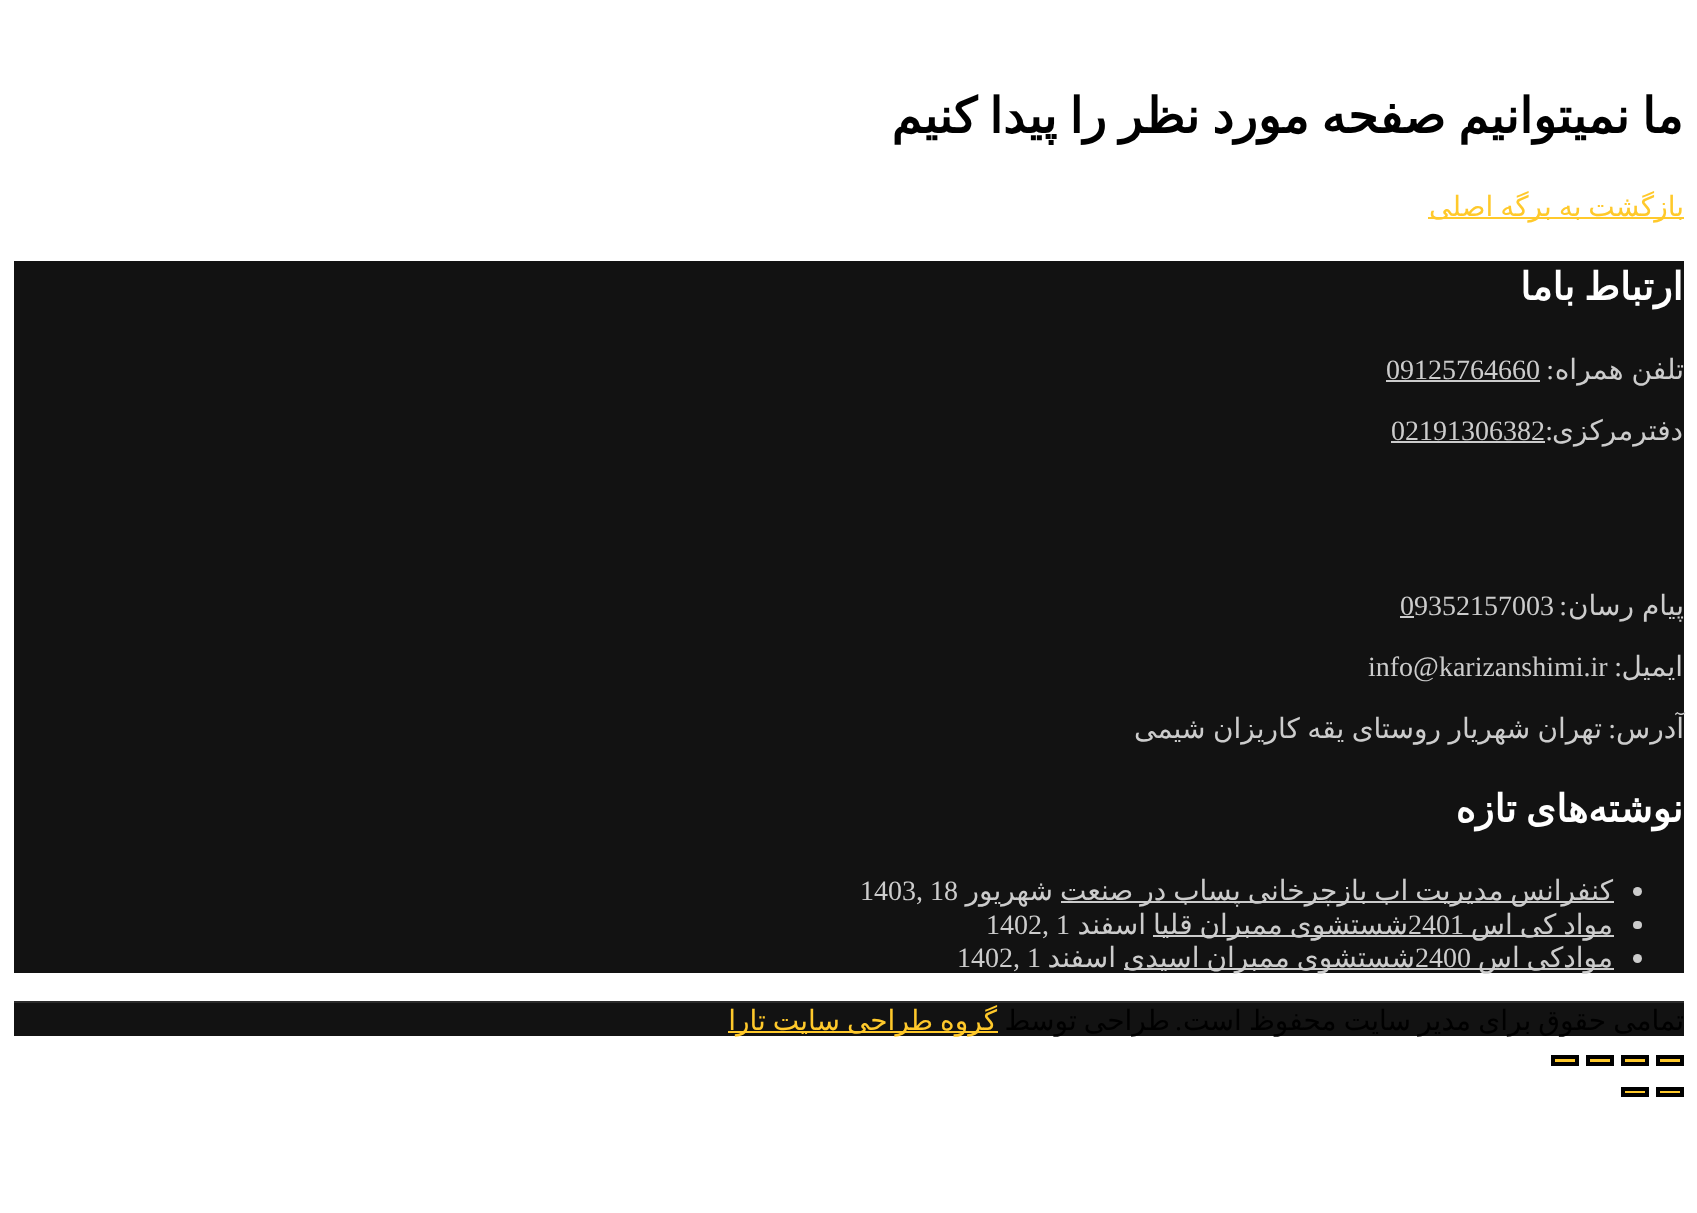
<?xml version="1.0" encoding="UTF-8"?>
<svg xmlns="http://www.w3.org/2000/svg" xmlns:xlink="http://www.w3.org/1999/xlink" width="1697" height="1213">
  <rect width="100%" height="100%" fill="#ffffff" />
  <rect x="1428" y="217" width="256" height="2" fill="#ffc92b" />
  <rect x="14" y="261" width="1670" height="712" fill="#121212" />
  <rect x="1386" y="380" width="154" height="2" fill="#cccccc" />
  <rect x="1391" y="441" width="154" height="2" fill="#cccccc" />
  <rect x="1400" y="616" width="14" height="2" fill="#cccccc" />
  <circle cx="1637.5" cy="891.5" r="4.5" fill="#cccccc" />
  <rect x="1061" y="901" width="553" height="2" fill="#cccccc" />
  <rect x="1633" y="921" width="9" height="8" rx="4" fill="#cccccc" />
  <rect x="1153" y="935" width="461" height="2" fill="#cccccc" />
  <circle cx="1637.5" cy="958.5" r="4.5" fill="#cccccc" />
  <rect x="1124" y="968" width="490" height="2" fill="#cccccc" />
  <rect x="14" y="1003" width="1670" height="33" fill="#121212" />
  <rect x="14" y="1001" width="1670" height="2" fill="#2b2b2b" />
  <rect x="728" y="1031" width="270" height="2" fill="#ffc92b" />
  <rect x="1658" y="1057" width="24" height="7" fill="#ffc92b" stroke="#000000" stroke-width="4" />
  <rect x="1623" y="1057" width="24" height="7" fill="#ffc92b" stroke="#000000" stroke-width="4" />
  <rect x="1588" y="1057" width="24" height="7" fill="#ffc92b" stroke="#000000" stroke-width="4" />
  <rect x="1553" y="1057" width="24" height="7" fill="#ffc92b" stroke="#000000" stroke-width="4" />
  <rect x="1658" y="1089" width="24" height="6" fill="#ffc92b" stroke="#000000" stroke-width="4" />
  <rect x="1623" y="1089" width="24" height="6" fill="#ffc92b" stroke="#000000" stroke-width="4" />
  <text x="1683" y="133" word-spacing="-3.25" style="font-family: DejaVu Sans; font-size: 49px; font-weight: bold; direction: rtl; fill: #000000">ما نمیتوانیم صفحه مورد نظر را پیدا کنیم</text>
  <text x="1684" y="216" word-spacing="-2" style="font-family: DejaVu Sans; font-size: 28px; direction: rtl; fill: #ffc92b">بازگشت به برگه اصلی</text>
  <text x="1683" y="300" word-spacing="-3" style="font-family: DejaVu Sans; font-size: 38.5px; font-weight: bold; direction: rtl; fill: #ffffff">ارتباط باما</text>
  <text x="1684" y="379" word-spacing="-1" style="font-family: DejaVu Sans; font-size: 28px; direction: rtl; fill: #cccccc">تلفن همراه</text>
  <text x="1554" y="379" style="font-family: Liberation Serif; font-size: 28px; direction: rtl; fill: #cccccc">:</text>
  <text x="1386" y="379" style="font-family: Liberation Serif; font-size: 28px; fill: #cccccc">09125764660</text>
  <text x="1683" y="440" style="font-family: DejaVu Sans; font-size: 28px; direction: rtl; fill: #cccccc">دفترمرکزی</text>
  <text x="1553" y="440" style="font-family: Liberation Serif; font-size: 28px; direction: rtl; fill: #cccccc">:</text>
  <text x="1391" y="440" style="font-family: Liberation Serif; font-size: 28px; fill: #cccccc">02191306382</text>
  <text x="1684" y="615" word-spacing="-1" style="font-family: DejaVu Sans; font-size: 28px; direction: rtl; fill: #cccccc">پیام رسان</text>
  <text x="1567" y="615" style="font-family: Liberation Serif; font-size: 28px; direction: rtl; fill: #cccccc">:</text>
  <text x="1400" y="615" style="font-family: Liberation Serif; font-size: 28px; fill: #cccccc">09352157003</text>
  <text x="1683" y="676" style="font-family: DejaVu Sans; font-size: 28px; direction: rtl; fill: #cccccc">ایمیل</text>
  <text x="1622" y="676" style="font-family: Liberation Serif; font-size: 28px; direction: rtl; fill: #cccccc">:</text>
  <text x="1368" y="676" style="font-family: Liberation Serif; font-size: 28px; fill: #cccccc">info@karizanshimi.ir</text>
  <text x="1684" y="738" style="font-family: DejaVu Sans; font-size: 28px; direction: rtl; fill: #cccccc">آدرس</text>
  <text x="1616" y="738" style="font-family: Liberation Serif; font-size: 28px; direction: rtl; fill: #cccccc">:</text>
  <text x="1602" y="738" word-spacing="-1.5" style="font-family: DejaVu Sans; font-size: 28px; direction: rtl; fill: #cccccc">تهران شهریار روستای یقه کاریزان شیمی</text>
  <text x="1683" y="822" style="font-family: DejaVu Sans; font-size: 38.5px; font-weight: bold; direction: rtl; fill: #ffffff">نوشته</text>
  <text x="1588" y="822" word-spacing="-3" style="font-family: DejaVu Sans; font-size: 38.5px; font-weight: bold; direction: rtl; fill: #ffffff">های تازه</text>
  <text x="1613" y="900" word-spacing="-2" style="font-family: DejaVu Sans; font-size: 28px; direction: rtl; fill: #cccccc">کنفرانس مدیریت اب بازچرخانی پساب در صنعت</text>
  <text x="1053" y="900" style="font-family: DejaVu Sans; font-size: 28px; direction: rtl; fill: #cccccc">شهریور</text>
  <text x="860" y="900" style="font-family: Liberation Serif; font-size: 28px; fill: #cccccc">1403, 18</text>
  <text x="1613" y="934" word-spacing="-2" style="font-family: DejaVu Sans; font-size: 28px; direction: rtl; fill: #cccccc">مواد کی اس</text>
  <text x="1408" y="934" style="font-family: Liberation Serif; font-size: 28px; fill: #cccccc">2401</text>
  <text x="1408" y="934" word-spacing="-2" style="font-family: DejaVu Sans; font-size: 28px; direction: rtl; fill: #cccccc">شستشوی ممبران قلیا</text>
  <text x="1146" y="934" style="font-family: DejaVu Sans; font-size: 28px; direction: rtl; fill: #cccccc">اسفند</text>
  <text x="986" y="934" style="font-family: Liberation Serif; font-size: 28px; fill: #cccccc">1402, 1</text>
  <text x="1613" y="967" word-spacing="-2" style="font-family: DejaVu Sans; font-size: 28px; direction: rtl; fill: #cccccc">موادکی اس</text>
  <text x="1415" y="967" style="font-family: Liberation Serif; font-size: 28px; fill: #cccccc">2400</text>
  <text x="1415" y="967" word-spacing="-2" style="font-family: DejaVu Sans; font-size: 28px; direction: rtl; fill: #cccccc">شستشوی ممبران اسیدی</text>
  <text x="1116" y="967" style="font-family: DejaVu Sans; font-size: 28px; direction: rtl; fill: #cccccc">اسفند</text>
  <text x="957" y="967" style="font-family: Liberation Serif; font-size: 28px; fill: #cccccc">1402, 1</text>
  <text x="1684" y="1030" word-spacing="-1.75" style="font-family: DejaVu Sans; font-size: 28px; direction: rtl; fill: #000000">تمامی حقوق برای مدیر سایت محفوظ است</text>
  <text x="1182" y="1030" style="font-family: Liberation Serif; font-size: 28px; direction: rtl; fill: #000000">.</text>
  <text x="1170" y="1030" word-spacing="-1.75" style="font-family: DejaVu Sans; font-size: 28px; direction: rtl; fill: #000000">طراحی توسط</text>
  <text x="997" y="1030" word-spacing="-2" style="font-family: DejaVu Sans; font-size: 28px; direction: rtl; fill: #ffc92b">گروه طراحی سایت تارا</text>
</svg>
